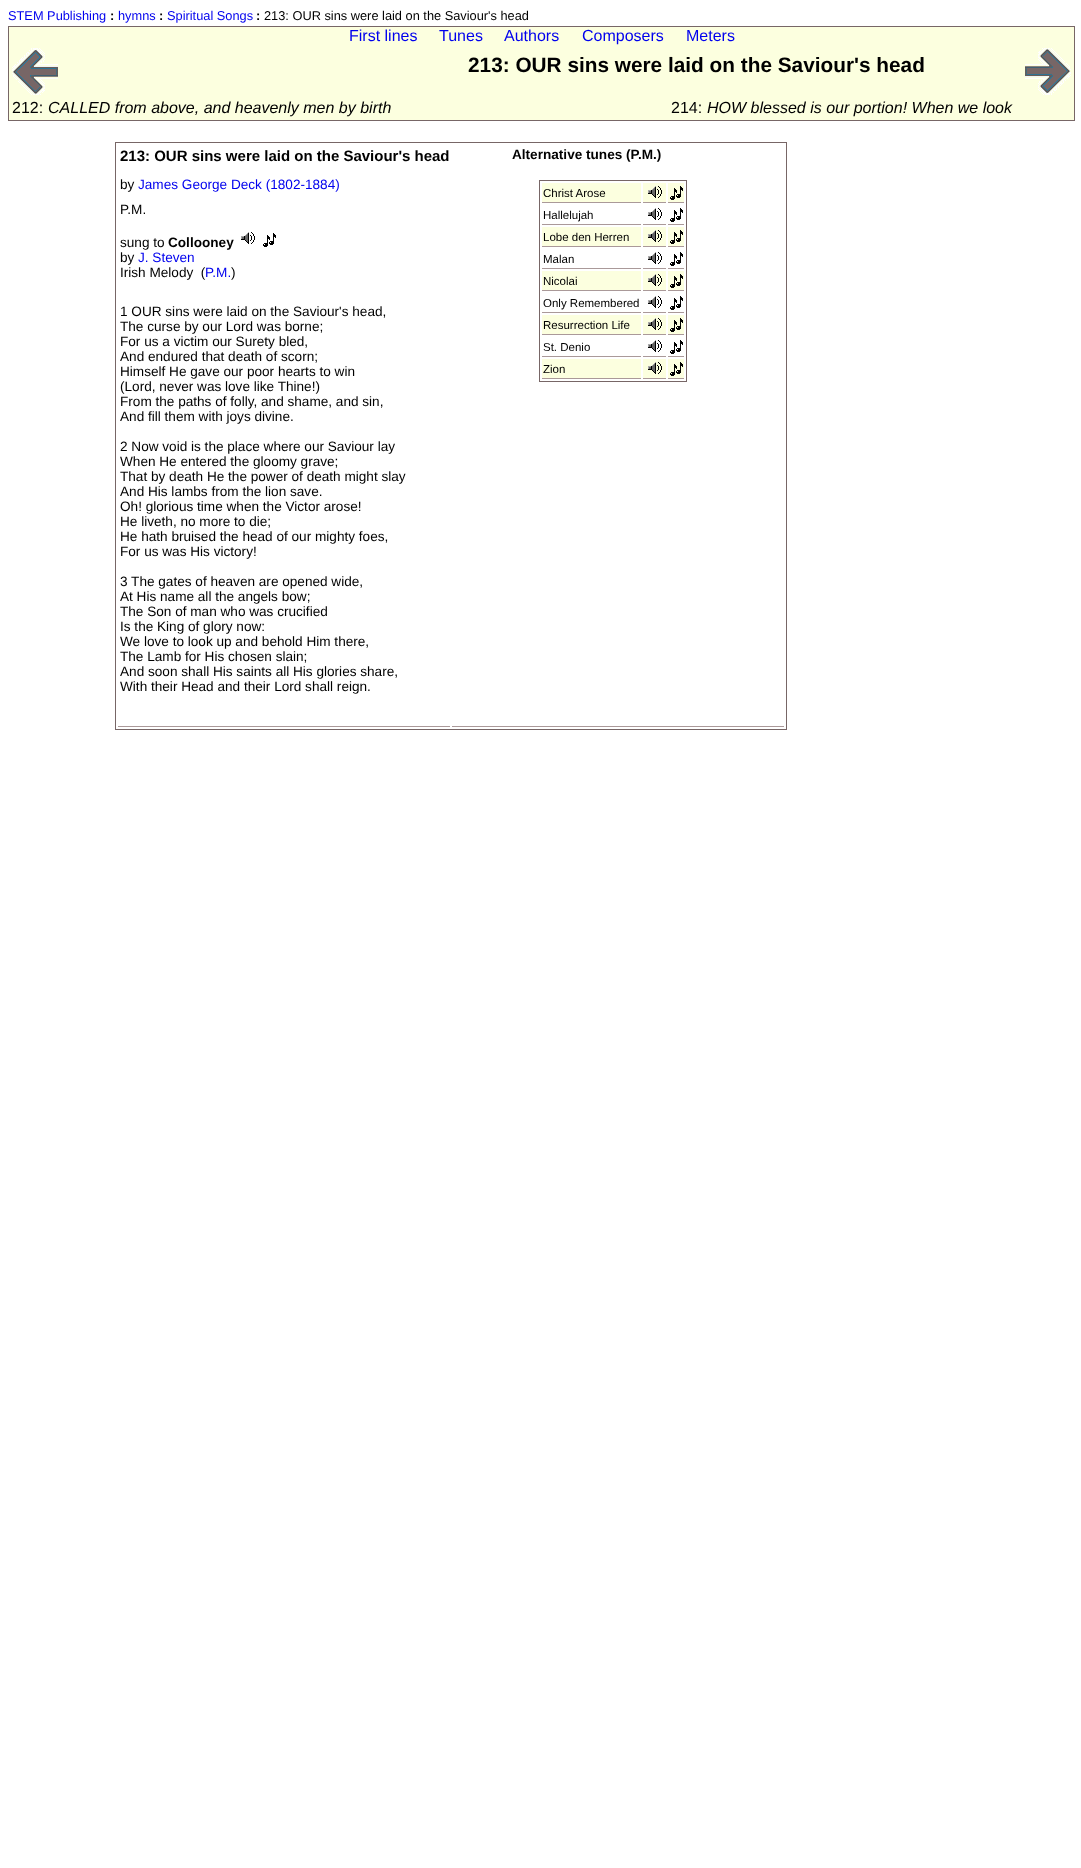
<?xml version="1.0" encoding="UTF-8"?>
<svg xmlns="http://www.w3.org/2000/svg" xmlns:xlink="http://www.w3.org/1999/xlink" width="1081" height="1868">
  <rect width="100%" height="100%" fill="#ffffff" />
  <rect x="8.5" y="26.5" width="1066" height="94" fill="#fcffdf" stroke="#776666" />
  <image x="12" y="48" width="46" height="47" xlink:href="image1.png" />
  <image x="1025" y="48" width="46" height="47" xlink:href="image2.png" />
  <rect x="115.5" y="142.5" width="671" height="587" fill="none" stroke="#776666" />
  <rect x="118" y="726" width="332" height="1" fill="#aa9999" />
  <image x="241" y="232" width="14" height="12" xlink:href="image3.png" />
  <image x="263" y="233" width="13" height="14" xlink:href="image4.png" />
  <rect x="452" y="726" width="332" height="1" fill="#aa9999" />
  <rect x="539.5" y="180.5" width="147" height="201" fill="none" stroke="#776666" />
  <rect x="542" y="183" width="99" height="19" fill="#fcffdf" />
  <rect x="542" y="202" width="99" height="1" fill="#aa9999" />
  <rect x="643" y="183" width="23" height="19" fill="#fcffdf" />
  <rect x="643" y="202" width="23" height="1" fill="#aa9999" />
  <image x="648" y="186" width="14" height="12" xlink:href="image5.png" />
  <rect x="668" y="183" width="16" height="19" fill="#fcffdf" />
  <rect x="668" y="202" width="16" height="1" fill="#aa9999" />
  <image x="670" y="186" width="13" height="14" xlink:href="image6.png" />
  <rect x="542" y="224" width="99" height="1" fill="#aa9999" />
  <rect x="643" y="224" width="23" height="1" fill="#aa9999" />
  <image x="648" y="208" width="14" height="12" xlink:href="image3.png" />
  <rect x="668" y="224" width="16" height="1" fill="#aa9999" />
  <image x="670" y="208" width="13" height="14" xlink:href="image4.png" />
  <rect x="542" y="227" width="99" height="19" fill="#fcffdf" />
  <rect x="542" y="246" width="99" height="1" fill="#aa9999" />
  <rect x="643" y="227" width="23" height="19" fill="#fcffdf" />
  <rect x="643" y="246" width="23" height="1" fill="#aa9999" />
  <image x="648" y="230" width="14" height="12" xlink:href="image5.png" />
  <rect x="668" y="227" width="16" height="19" fill="#fcffdf" />
  <rect x="668" y="246" width="16" height="1" fill="#aa9999" />
  <image x="670" y="230" width="13" height="14" xlink:href="image6.png" />
  <rect x="542" y="268" width="99" height="1" fill="#aa9999" />
  <rect x="643" y="268" width="23" height="1" fill="#aa9999" />
  <image x="648" y="252" width="14" height="12" xlink:href="image3.png" />
  <rect x="668" y="268" width="16" height="1" fill="#aa9999" />
  <image x="670" y="252" width="13" height="14" xlink:href="image4.png" />
  <rect x="542" y="271" width="99" height="19" fill="#fcffdf" />
  <rect x="542" y="290" width="99" height="1" fill="#aa9999" />
  <rect x="643" y="271" width="23" height="19" fill="#fcffdf" />
  <rect x="643" y="290" width="23" height="1" fill="#aa9999" />
  <image x="648" y="274" width="14" height="12" xlink:href="image5.png" />
  <rect x="668" y="271" width="16" height="19" fill="#fcffdf" />
  <rect x="668" y="290" width="16" height="1" fill="#aa9999" />
  <image x="670" y="274" width="13" height="14" xlink:href="image6.png" />
  <rect x="542" y="312" width="99" height="1" fill="#aa9999" />
  <rect x="643" y="312" width="23" height="1" fill="#aa9999" />
  <image x="648" y="296" width="14" height="12" xlink:href="image3.png" />
  <rect x="668" y="312" width="16" height="1" fill="#aa9999" />
  <image x="670" y="296" width="13" height="14" xlink:href="image4.png" />
  <rect x="542" y="315" width="99" height="19" fill="#fcffdf" />
  <rect x="542" y="334" width="99" height="1" fill="#aa9999" />
  <rect x="643" y="315" width="23" height="19" fill="#fcffdf" />
  <rect x="643" y="334" width="23" height="1" fill="#aa9999" />
  <image x="648" y="318" width="14" height="12" xlink:href="image5.png" />
  <rect x="668" y="315" width="16" height="19" fill="#fcffdf" />
  <rect x="668" y="334" width="16" height="1" fill="#aa9999" />
  <image x="670" y="318" width="13" height="14" xlink:href="image6.png" />
  <rect x="542" y="356" width="99" height="1" fill="#aa9999" />
  <rect x="643" y="356" width="23" height="1" fill="#aa9999" />
  <image x="648" y="340" width="14" height="12" xlink:href="image3.png" />
  <rect x="668" y="356" width="16" height="1" fill="#aa9999" />
  <image x="670" y="340" width="13" height="14" xlink:href="image4.png" />
  <rect x="542" y="359" width="99" height="19" fill="#fcffdf" />
  <rect x="542" y="378" width="99" height="1" fill="#aa9999" />
  <rect x="643" y="359" width="23" height="19" fill="#fcffdf" />
  <rect x="643" y="378" width="23" height="1" fill="#aa9999" />
  <image x="648" y="362" width="14" height="12" xlink:href="image5.png" />
  <rect x="668" y="359" width="16" height="19" fill="#fcffdf" />
  <rect x="668" y="378" width="16" height="1" fill="#aa9999" />
  <image x="670" y="362" width="13" height="14" xlink:href="image6.png" />
  <text x="8" y="20" style="font-family: Liberation Sans; font-size: 12.8px; fill: #0000ee">STEM Publishing</text>
  <text x="110" y="20" style="font-family: Liberation Sans; font-size: 12.8px; font-weight: bold; fill: #000000">:</text>
  <text x="118" y="20" style="font-family: Liberation Sans; font-size: 12.8px; fill: #0000ee">hymns</text>
  <text x="159" y="20" style="font-family: Liberation Sans; font-size: 12.8px; font-weight: bold; fill: #000000">:</text>
  <text x="167" y="20" style="font-family: Liberation Sans; font-size: 12.8px; fill: #0000ee">Spiritual Songs</text>
  <text x="256" y="20" style="font-family: Liberation Sans; font-size: 12.8px; font-weight: bold; fill: #000000">:</text>
  <text x="264" y="20" style="font-family: Liberation Sans; font-size: 12.8px; fill: #000000">213: OUR sins were laid on the Saviour's head</text>
  <text x="349" y="41" style="font-family: Liberation Sans; font-size: 16px; fill: #0000ee">First lines</text>
  <text x="439" y="41" style="font-family: Liberation Sans; font-size: 16px; fill: #0000ee">Tunes</text>
  <text x="504" y="41" style="font-family: Liberation Sans; font-size: 16px; fill: #0000ee">Authors</text>
  <text x="582" y="41" style="font-family: Liberation Sans; font-size: 16px; fill: #0000ee">Composers</text>
  <text x="686" y="41" style="font-family: Liberation Sans; font-size: 16px; fill: #0000ee">Meters</text>
  <text x="468" y="72" style="font-family: Liberation Sans; font-size: 20.8px; font-weight: bold; fill: #000000">213: OUR sins were laid on the Saviour's head</text>
  <text x="12" y="113" style="font-family: Liberation Sans; font-size: 16px; fill: #000000">212:</text>
  <text x="48" y="113" style="font-family: Liberation Sans; font-size: 16px; font-style: italic; fill: #000000">CALLED from above, and heavenly men by birth</text>
  <text x="671" y="113" style="font-family: Liberation Sans; font-size: 16px; fill: #000000">214:</text>
  <text x="707" y="113" style="font-family: Liberation Sans; font-size: 16px; font-style: italic; fill: #000000">HOW blessed is our portion! When we look</text>
  <text x="120" y="161" style="font-family: Liberation Sans; font-size: 15px; font-weight: bold; fill: #000000">213: OUR sins were laid on the Saviour's head</text>
  <text x="120" y="189" style="font-family: Liberation Sans; font-size: 13.6px; fill: #000000">by</text>
  <text x="138" y="189" style="font-family: Liberation Sans; font-size: 13.6px; fill: #0000ee">James George Deck (1802-1884)</text>
  <text x="120" y="214" style="font-family: Liberation Sans; font-size: 13.6px; fill: #000000">P.M.</text>
  <text x="120" y="247" style="font-family: Liberation Sans; font-size: 13.6px; fill: #000000">sung to</text>
  <text x="168" y="247" style="font-family: Liberation Sans; font-size: 13.6px; font-weight: bold; fill: #000000">Collooney</text>
  <text x="120" y="262" style="font-family: Liberation Sans; font-size: 13.6px; fill: #000000">by</text>
  <text x="138" y="262" style="font-family: Liberation Sans; font-size: 13.6px; fill: #0000ee">J. Steven</text>
  <text x="120" y="277" style="font-family: Liberation Sans; font-size: 13.6px; fill: #000000" xml:space="preserve">Irish Melody  (</text>
  <text x="205" y="277" style="font-family: Liberation Sans; font-size: 13.6px; fill: #0000ee">P.M.</text>
  <text x="231" y="277" style="font-family: Liberation Sans; font-size: 13.6px; fill: #000000">)</text>
  <text x="120" y="316" style="font-family: Liberation Sans; font-size: 13.6px; fill: #000000">1 OUR sins were laid on the Saviour's head,</text>
  <text x="120" y="331" style="font-family: Liberation Sans; font-size: 13.6px; fill: #000000">The curse by our Lord was borne;</text>
  <text x="120" y="346" style="font-family: Liberation Sans; font-size: 13.6px; fill: #000000">For us a victim our Surety bled,</text>
  <text x="120" y="361" style="font-family: Liberation Sans; font-size: 13.6px; fill: #000000">And endured that death of scorn;</text>
  <text x="120" y="376" style="font-family: Liberation Sans; font-size: 13.6px; fill: #000000">Himself He gave our poor hearts to win</text>
  <text x="120" y="391" style="font-family: Liberation Sans; font-size: 13.6px; fill: #000000">(Lord, never was love like Thine!)</text>
  <text x="120" y="406" style="font-family: Liberation Sans; font-size: 13.6px; fill: #000000">From the paths of folly, and shame, and sin,</text>
  <text x="120" y="421" style="font-family: Liberation Sans; font-size: 13.6px; fill: #000000">And fill them with joys divine.</text>
  <text x="120" y="451" style="font-family: Liberation Sans; font-size: 13.6px; fill: #000000">2 Now void is the place where our Saviour lay</text>
  <text x="120" y="466" style="font-family: Liberation Sans; font-size: 13.6px; fill: #000000">When He entered the gloomy grave;</text>
  <text x="120" y="481" style="font-family: Liberation Sans; font-size: 13.6px; fill: #000000">That by death He the power of death might slay</text>
  <text x="120" y="496" style="font-family: Liberation Sans; font-size: 13.6px; fill: #000000">And His lambs from the lion save.</text>
  <text x="120" y="511" style="font-family: Liberation Sans; font-size: 13.6px; fill: #000000">Oh! glorious time when the Victor arose!</text>
  <text x="120" y="526" style="font-family: Liberation Sans; font-size: 13.6px; fill: #000000">He liveth, no more to die;</text>
  <text x="120" y="541" style="font-family: Liberation Sans; font-size: 13.6px; fill: #000000">He hath bruised the head of our mighty foes,</text>
  <text x="120" y="556" style="font-family: Liberation Sans; font-size: 13.6px; fill: #000000">For us was His victory!</text>
  <text x="120" y="586" style="font-family: Liberation Sans; font-size: 13.6px; fill: #000000">3 The gates of heaven are opened wide,</text>
  <text x="120" y="601" style="font-family: Liberation Sans; font-size: 13.6px; fill: #000000">At His name all the angels bow;</text>
  <text x="120" y="616" style="font-family: Liberation Sans; font-size: 13.6px; fill: #000000">The Son of man who was crucified</text>
  <text x="120" y="631" style="font-family: Liberation Sans; font-size: 13.6px; fill: #000000">Is the King of glory now:</text>
  <text x="120" y="646" style="font-family: Liberation Sans; font-size: 13.6px; fill: #000000">We love to look up and behold Him there,</text>
  <text x="120" y="661" style="font-family: Liberation Sans; font-size: 13.6px; fill: #000000">The Lamb for His chosen slain;</text>
  <text x="120" y="676" style="font-family: Liberation Sans; font-size: 13.6px; fill: #000000">And soon shall His saints all His glories share,</text>
  <text x="120" y="691" style="font-family: Liberation Sans; font-size: 13.6px; fill: #000000">With their Head and their Lord shall reign.</text>
  <text x="512" y="159" style="font-family: Liberation Sans; font-size: 13.6px; font-weight: bold; fill: #000000">Alternative tunes (P.M.)</text>
  <text x="543" y="197" style="font-family: Liberation Sans; font-size: 11.5px; fill: #000000">Christ Arose</text>
  <text x="543" y="219" style="font-family: Liberation Sans; font-size: 11.5px; fill: #000000">Hallelujah</text>
  <text x="543" y="241" style="font-family: Liberation Sans; font-size: 11.5px; fill: #000000">Lobe den Herren</text>
  <text x="543" y="263" style="font-family: Liberation Sans; font-size: 11.5px; fill: #000000">Malan</text>
  <text x="543" y="285" style="font-family: Liberation Sans; font-size: 11.5px; fill: #000000">Nicolai</text>
  <text x="543" y="307" style="font-family: Liberation Sans; font-size: 11.5px; fill: #000000">Only Remembered</text>
  <text x="543" y="329" style="font-family: Liberation Sans; font-size: 11.5px; fill: #000000">Resurrection Life</text>
  <text x="543" y="351" style="font-family: Liberation Sans; font-size: 11.5px; fill: #000000">St. Denio</text>
  <text x="543" y="373" style="font-family: Liberation Sans; font-size: 11.5px; fill: #000000">Zion</text>
</svg>
